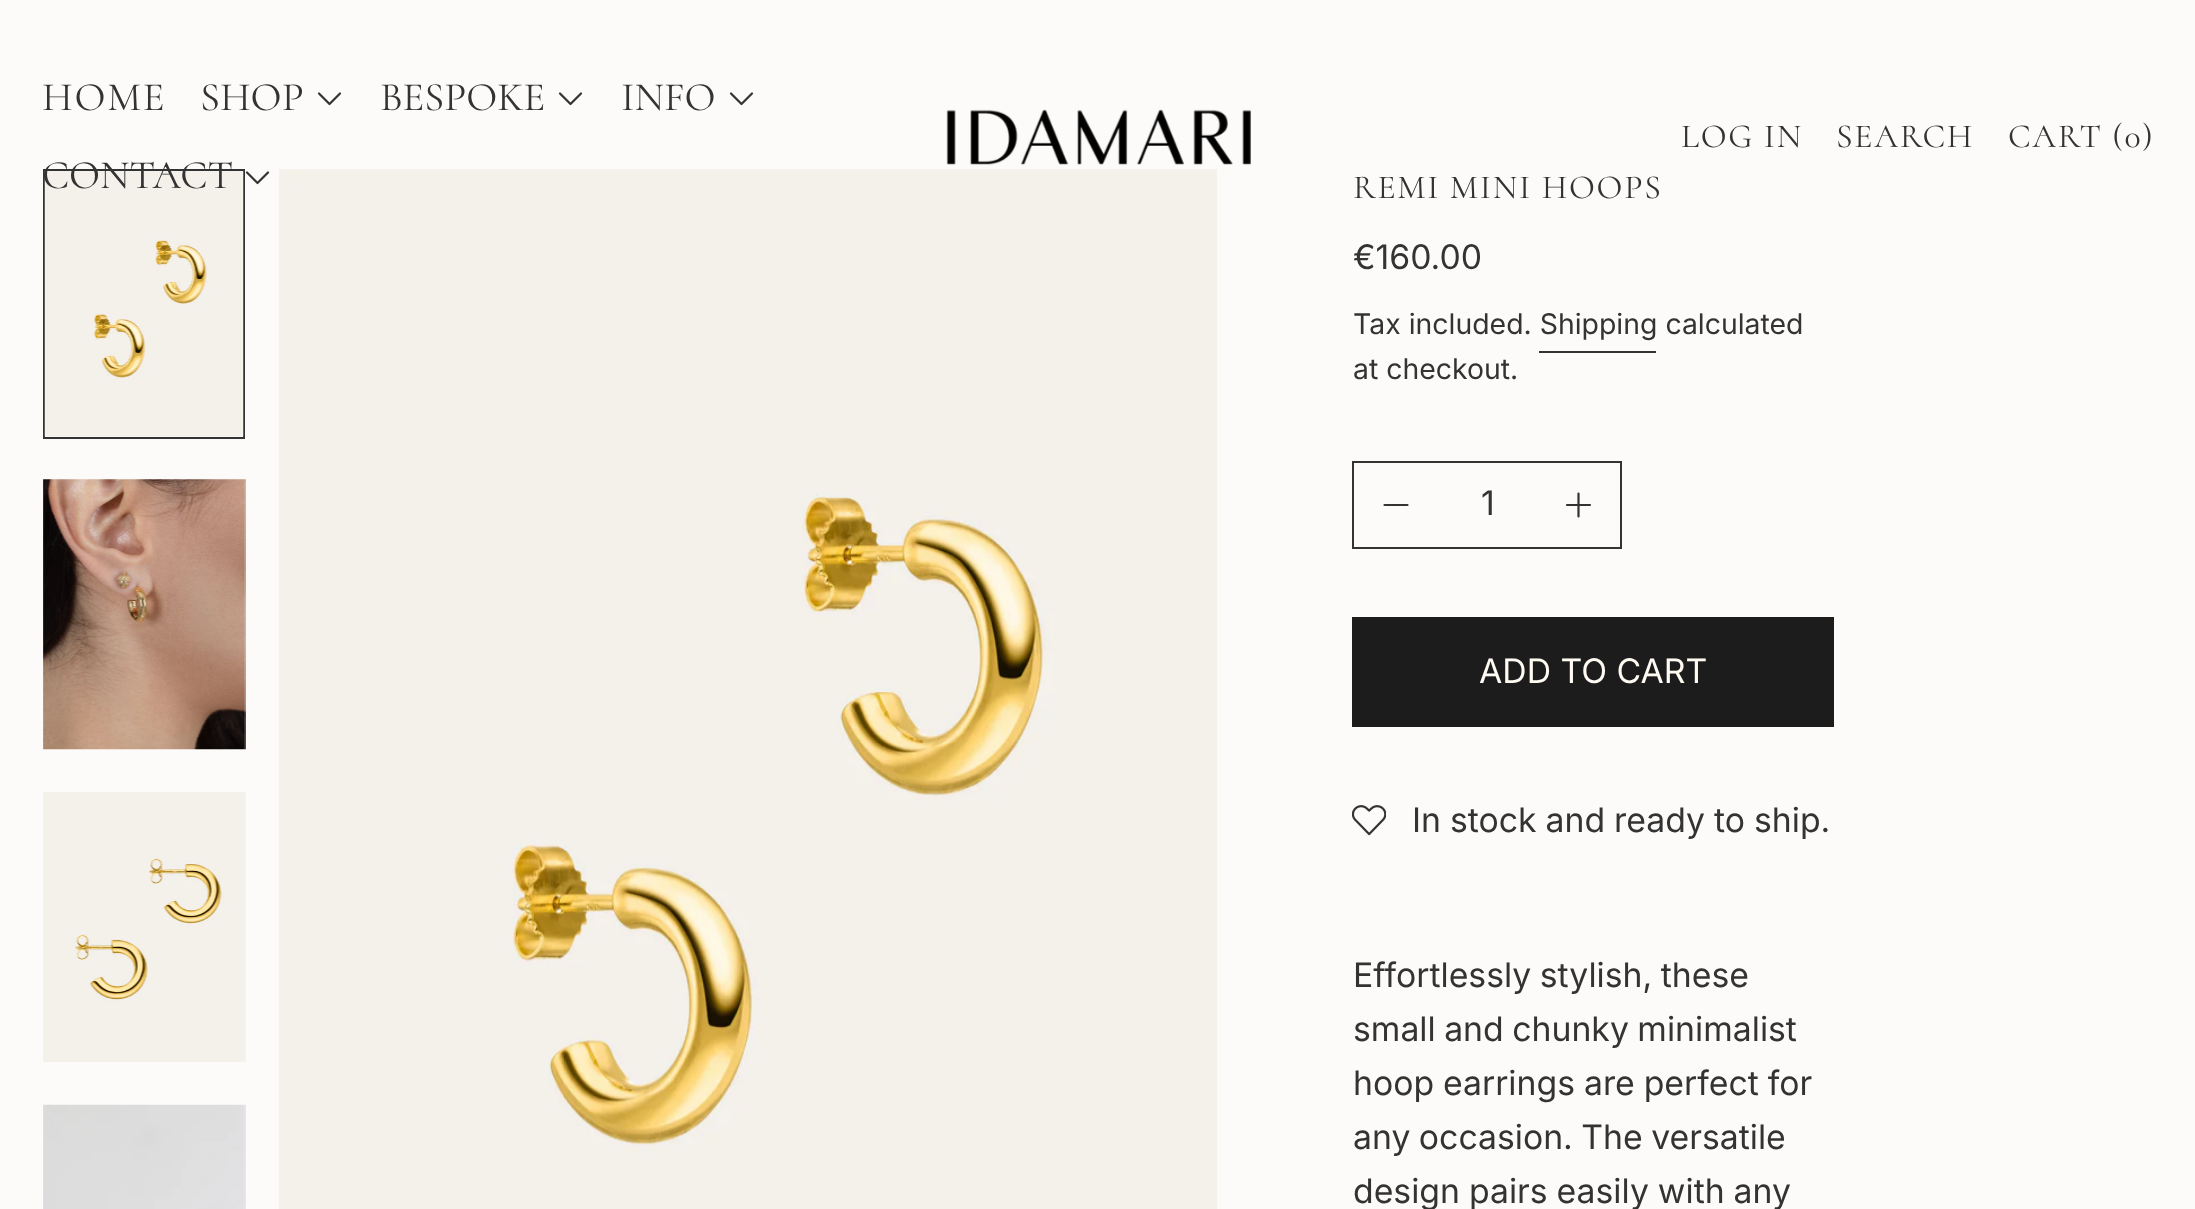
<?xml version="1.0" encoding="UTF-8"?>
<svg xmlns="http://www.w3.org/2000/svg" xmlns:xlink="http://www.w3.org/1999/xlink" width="2195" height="1209">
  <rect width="100%" height="100%" fill="#fcfbf9" />
  <path d="M 340 93.5 l -10.5 10.5 l -10.5 -10.5" fill="none" stroke="#333333" stroke-width="2.2" stroke-linecap="round" stroke-linejoin="round" />
  <path d="M 581 93.5 l -10.5 10.5 l -10.5 -10.5" fill="none" stroke="#333333" stroke-width="2.2" stroke-linecap="round" stroke-linejoin="round" />
  <path d="M 752 93.5 l -10.5 10.5 l -10.5 -10.5" fill="none" stroke="#333333" stroke-width="2.2" stroke-linecap="round" stroke-linejoin="round" />
  <path d="M 268 172.5 l -10.5 10.5 l -10.5 -10.5" fill="none" stroke="#333333" stroke-width="2.2" stroke-linecap="round" stroke-linejoin="round" />
  <image x="946" y="109" width="305" height="56" xlink:href="image1.png" />
  <rect x="44" y="170" width="200" height="268" fill="none" stroke="#333333" stroke-width="2" />
  <image x="44" y="171" width="200" height="266" xlink:href="image2.png" />
  <image x="43" y="479" width="203" height="271" xlink:href="image3.png" />
  <image x="43" y="792" width="203" height="270" xlink:href="image4.png" />
  <image x="43" y="1104" width="203" height="105" xlink:href="image5.png" />
  <image x="279" y="169" width="938" height="1040" xlink:href="image6.png" />
  <rect x="1539" y="351" width="117" height="2" fill="#333333" />
  <rect x="1352" y="461" width="270" height="2" fill="#333333" />
  <rect x="1352" y="547" width="185" height="2" fill="#333333" />
  <rect x="1352" y="461" width="2" height="88" fill="#333333" />
  <path d="M 1384.5 505 h 23" fill="none" stroke="#333333" stroke-width="2.2" stroke-linecap="round" stroke-linejoin="round" />
  <rect x="1620" y="461" width="2" height="88" fill="#333333" />
  <rect x="1537" y="547" width="85" height="2" fill="#333333" />
  <path d="M 1567 505 h 23 m -11.5 -11.5 v 23" fill="none" stroke="#333333" stroke-width="2.2" stroke-linecap="round" stroke-linejoin="round" />
  <rect x="1352" y="617" width="482" height="110" fill="#1c1c1c" />
  <image x="1352" y="805" width="34" height="31" xlink:href="image7.png" />
  <text x="42" y="110" style="font-family: Cormorant; font-size: 40.5px; letter-spacing: 1.75px; fill: #333333">HOME</text>
  <text x="200" y="110" style="font-family: Cormorant; font-size: 40.5px; fill: #333333">SHOP</text>
  <text x="380" y="110" style="font-family: Cormorant; font-size: 40.5px; fill: #333333">BESPOKE</text>
  <text x="621" y="110" style="font-family: Cormorant; font-size: 40.5px; fill: #333333">INFO</text>
  <text x="42" y="188" style="font-family: Cormorant; font-size: 40.5px; fill: #333333">CONTACT</text>
  <text x="1681" y="147" style="font-family: Cormorant; font-size: 33.75px; letter-spacing: 1.75px; fill: #333333">LOG IN</text>
  <text x="1836" y="147" style="font-family: Cormorant; font-size: 33.75px; letter-spacing: 1.75px; fill: #333333">SEARCH</text>
  <text x="2008" y="147" style="font-family: Cormorant; font-size: 33.75px; letter-spacing: 1.75px; fill: #333333">CART (0)</text>
  <text x="1353" y="198" style="font-family: Cormorant; font-size: 33.75px; letter-spacing: 1.75px; fill: #333333">REMI MINI HOOPS</text>
  <text x="1353" y="269" style="font-family: Inter; font-size: 33.75px; fill: #333333">€160.00</text>
  <text x="1353" y="334" style="font-family: Inter; font-size: 28.4px; fill: #333333">Tax included. Shipping calculated</text>
  <text x="1353" y="379" style="font-family: Inter; font-size: 28.4px; fill: #333333">at checkout.</text>
  <text x="1481" y="515" style="font-family: Inter; font-size: 33.75px; fill: #333333">1</text>
  <text x="1479" y="683" style="font-family: Inter; font-size: 33.75px; fill: #fffaf2">ADD TO CART</text>
  <text x="1412" y="832" word-spacing="-0.5" style="font-family: Inter; font-size: 33.75px; fill: #333333">In stock and ready to ship.</text>
  <text x="1353" y="987" word-spacing="-1" style="font-family: Inter; font-size: 33.75px; fill: #333333">Effortlessly stylish, these</text>
  <text x="1353" y="1041" word-spacing="-1" style="font-family: Inter; font-size: 33.75px; fill: #333333">small and chunky minimalist</text>
  <text x="1353" y="1095" word-spacing="-0.5" style="font-family: Inter; font-size: 33.75px; fill: #333333">hoop earrings are perfect for</text>
  <text x="1353" y="1149" word-spacing="-1" style="font-family: Inter; font-size: 33.75px; fill: #333333">any occasion. The versatile</text>
  <text x="1353" y="1203" word-spacing="-0.5" style="font-family: Inter; font-size: 33.75px; fill: #333333">design pairs easily with any</text>
</svg>
